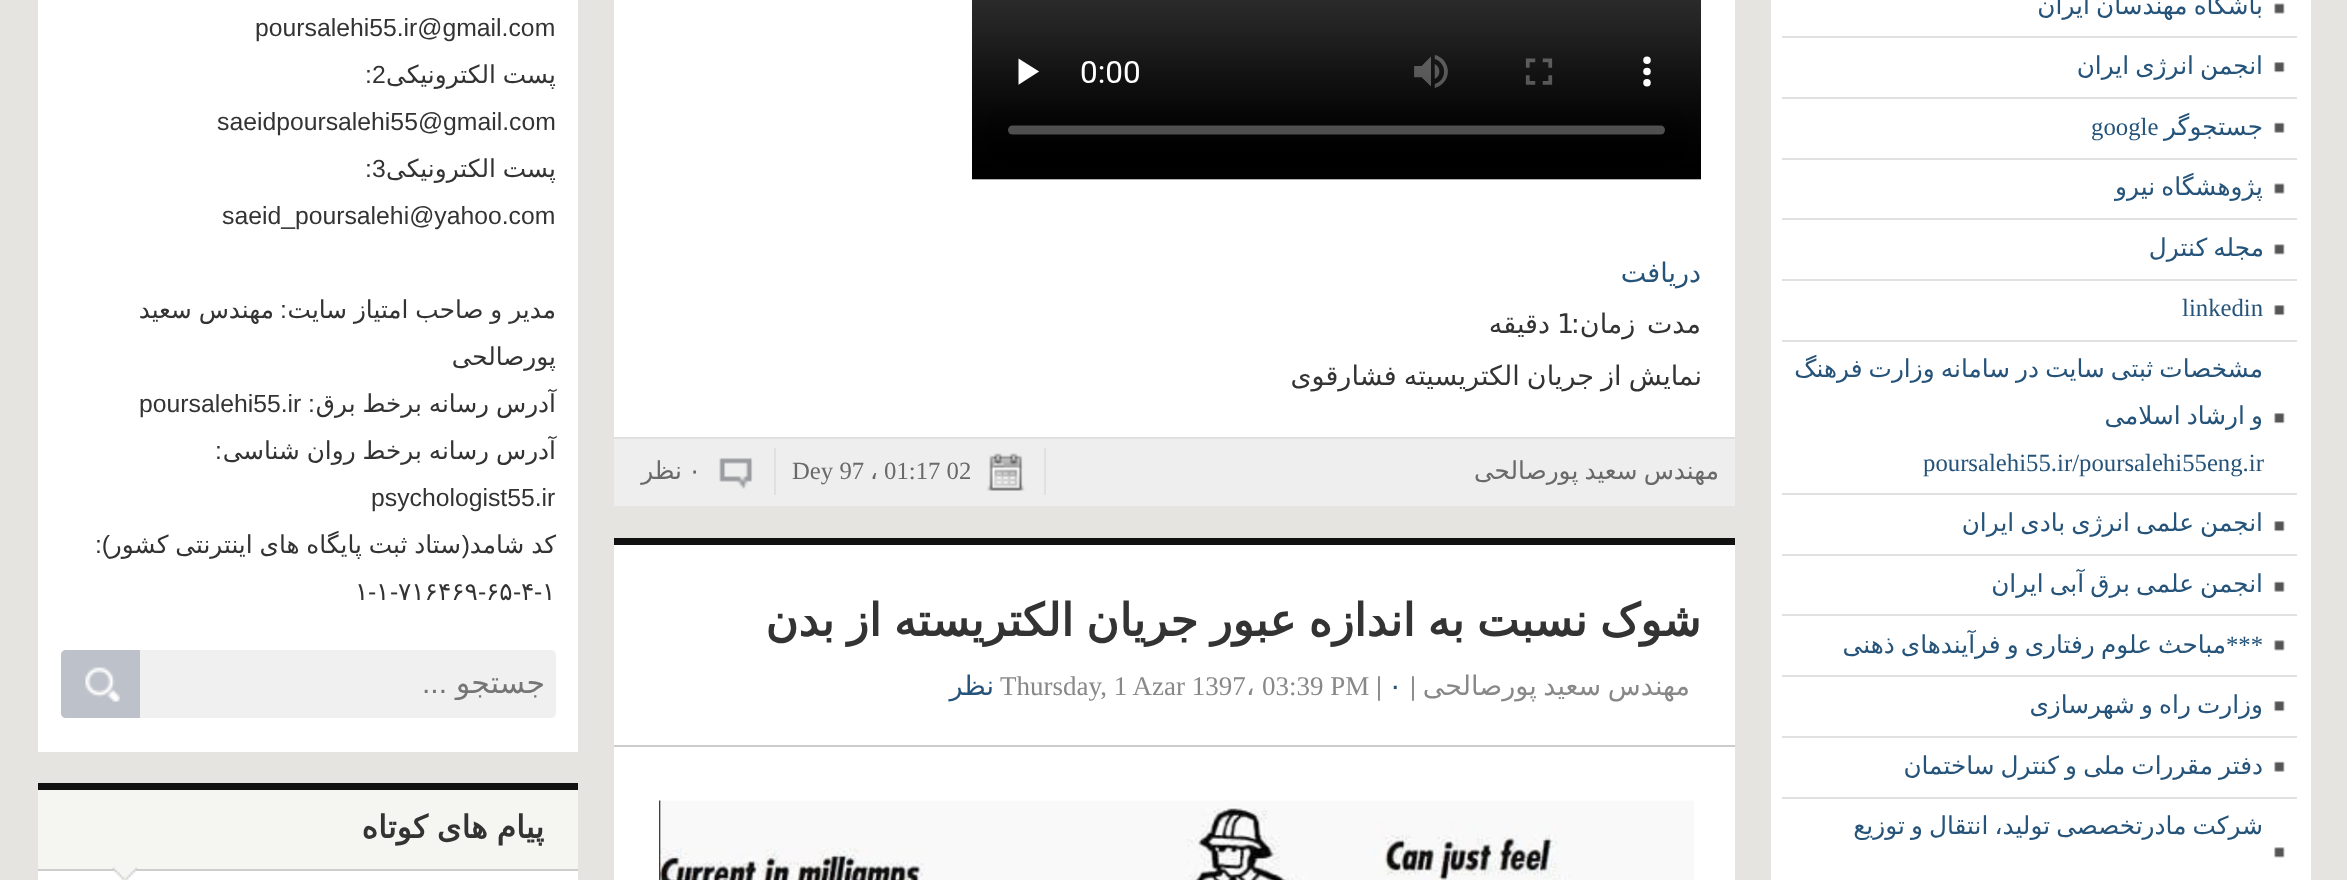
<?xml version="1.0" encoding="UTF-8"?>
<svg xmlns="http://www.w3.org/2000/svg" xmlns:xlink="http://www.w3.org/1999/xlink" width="2347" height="880">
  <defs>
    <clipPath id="clip1"><rect x="151" y="666" width="394" height="34" /></clipPath>
    <clipPath id="clip2"><rect x="646" width="1055" height="437" /></clipPath>
  </defs>
  <rect width="100%" height="100%" fill="#e5e4e0" />
  <rect x="1771" width="540" height="880" fill="#ffffff" />
  <rect x="1782" y="36" width="515" height="2" fill="#e1e1e1" />
  <image x="2274" y="3" width="11" height="11" xlink:href="image1.png" />
  <rect x="1782" y="97" width="515" height="2" fill="#e1e1e1" />
  <image x="2274" y="62" width="11" height="11" xlink:href="image2.png" />
  <rect x="1782" y="158" width="515" height="2" fill="#e1e1e1" />
  <image x="2274" y="122" width="11" height="11" xlink:href="image3.png" />
  <rect x="1782" y="218" width="515" height="2" fill="#e1e1e1" />
  <image x="2274" y="183" width="11" height="11" xlink:href="image1.png" />
  <rect x="1782" y="279" width="515" height="2" fill="#e1e1e1" />
  <image x="2274" y="244" width="11" height="11" xlink:href="image4.png" />
  <rect x="1782" y="340" width="515" height="2" fill="#e1e1e1" />
  <image x="2274" y="305" width="11" height="11" xlink:href="image2.png" />
  <rect x="1782" y="493" width="515" height="2" fill="#e1e1e1" />
  <image x="2274" y="413" width="11" height="11" xlink:href="image2.png" />
  <rect x="1782" y="554" width="515" height="2" fill="#e1e1e1" />
  <image x="2274" y="521" width="11" height="11" xlink:href="image2.png" />
  <rect x="1782" y="614" width="515" height="2" fill="#e1e1e1" />
  <image x="2274" y="581" width="11" height="11" xlink:href="image3.png" />
  <rect x="1782" y="675" width="515" height="2" fill="#e1e1e1" />
  <image x="2274" y="640" width="11" height="11" xlink:href="image4.png" />
  <rect x="1782" y="736" width="515" height="2" fill="#e1e1e1" />
  <image x="2274" y="701" width="11" height="11" xlink:href="image2.png" />
  <rect x="1782" y="797" width="515" height="2" fill="#e1e1e1" />
  <image x="2274" y="761" width="11" height="11" xlink:href="image3.png" />
  <image x="2274" y="847" width="11" height="11" xlink:href="image4.png" />
  <rect x="38" width="540" height="752" fill="#ffffff" />
  <rect x="61" y="650" width="495" height="68" rx="5" fill="#f0f0f0" />
  <path d="M 66 650 h 74 v 68 h -74 c -3 0 -5 -2 -5 -5 v -58 c 0 -3 2 -5 5 -5 z" fill="#bdc2ca" />
  <image x="85" y="667" width="35" height="35" xlink:href="image5.png" />
  <rect x="38" y="790" width="540" height="79" fill="#f5f5f1" />
  <rect x="38" y="783" width="540" height="7" fill="#111111" />
  <rect x="38" y="869" width="540" height="2" fill="#cecece" />
  <rect x="38" y="871" width="540" height="9" fill="#ffffff" />
  <image x="112" y="867" width="26" height="13" xlink:href="image6.png" />
  <rect x="614" width="1121" height="437" fill="#ffffff" />
  <image x="972" y="0" width="729" height="180" xlink:href="image7.png" />
  <rect x="614" y="439" width="1121" height="67" fill="#eeeeee" />
  <rect x="614" y="437" width="1121" height="2" fill="#e0e0e0" />
  <rect x="1044" y="448" width="2" height="47" fill="#e0e0e0" />
  <image x="987" y="453" width="38" height="38" xlink:href="image8.png" />
  <rect x="774" y="448" width="2" height="47" fill="#e0e0e0" />
  <image x="719" y="458" width="34" height="31" xlink:href="image9.png" />
  <rect x="614" y="545" width="1121" height="335" fill="#ffffff" />
  <rect x="614" y="538" width="1121" height="7" fill="#111111" />
  <rect x="614" y="745" width="1121" height="2" fill="#cccccc" />
  <image x="659" y="800" width="1035" height="80" xlink:href="image10.png" />
  <text x="2263" y="14" word-spacing="-1.75" style="font-family: DejaVu Sans; font-size: 24.75px; direction: rtl; fill: #255379">باشگاه مهندسان ایران</text>
  <text x="2263" y="74" word-spacing="-1.75" style="font-family: DejaVu Sans; font-size: 24.75px; direction: rtl; fill: #255379">انجمن انرژی ایران</text>
  <text x="2263" y="135" style="font-family: DejaVu Sans; font-size: 24.75px; direction: rtl; fill: #255379">جستجوگر</text>
  <text x="2091" y="135" style="font-family: Liberation Serif; font-size: 24.75px; fill: #255379">google</text>
  <text x="2263" y="195" word-spacing="-1.75" style="font-family: DejaVu Sans; font-size: 24.75px; direction: rtl; fill: #255379">پژوهشگاه نیرو</text>
  <text x="2264" y="256" word-spacing="-1.75" style="font-family: DejaVu Sans; font-size: 24.75px; direction: rtl; fill: #255379">مجله کنترل</text>
  <text x="2182" y="316" style="font-family: Liberation Serif; font-size: 24.75px; fill: #255379">linkedin</text>
  <text x="2263" y="377" word-spacing="-1.75" style="font-family: DejaVu Sans; font-size: 24.75px; direction: rtl; fill: #255379">مشخصات ثبتی سایت در سامانه وزارت فرهنگ</text>
  <text x="2263" y="424" word-spacing="-1.75" style="font-family: DejaVu Sans; font-size: 24.75px; direction: rtl; fill: #255379">و ارشاد اسلامی</text>
  <text x="1923" y="471" style="font-family: Liberation Serif; font-size: 24.75px; fill: #255379">poursalehi55.ir/poursalehi55eng.ir</text>
  <text x="2263" y="531" word-spacing="-1.75" style="font-family: DejaVu Sans; font-size: 24.75px; direction: rtl; fill: #255379">انجمن علمی انرژی بادی ایران</text>
  <text x="2263" y="592" word-spacing="-1.75" style="font-family: DejaVu Sans; font-size: 24.75px; direction: rtl; fill: #255379">انجمن علمی برق آبی ایران</text>
  <text x="2226" y="653" word-spacing="-1.75" style="font-family: DejaVu Sans; font-size: 24.75px; direction: rtl; fill: #255379">مباحث علوم رفتاری و فرآیندهای ذهنی</text>
  <text x="2263" y="653" style="font-family: Liberation Serif; font-size: 24.75px; direction: rtl; fill: #255379">***</text>
  <text x="2263" y="713" word-spacing="-1.75" style="font-family: DejaVu Sans; font-size: 24.75px; direction: rtl; fill: #255379">وزارت راه و شهرسازی</text>
  <text x="2263" y="774" word-spacing="-1.75" style="font-family: DejaVu Sans; font-size: 24.75px; direction: rtl; fill: #255379">دفتر مقررات ملی و کنترل ساختمان</text>
  <text x="2263" y="834" word-spacing="-1.75" style="font-family: DejaVu Sans; font-size: 24.75px; direction: rtl; fill: #255379">شرکت مادرتخصصی تولید، انتقال و توزیع</text>
  <text x="255" y="36" style="font-family: Liberation Sans; font-size: 24.75px; fill: #333333">poursalehi55.ir@gmail.com</text>
  <text x="556" y="83" word-spacing="-1" style="font-family: DejaVu Sans; font-size: 24.75px; direction: rtl; fill: #333333">پست الکترونیکی</text>
  <text x="365" y="83" style="font-family: Liberation Sans; font-size: 24.75px; fill: #333333">:2</text>
  <text x="217" y="130" style="font-family: Liberation Sans; font-size: 24.75px; fill: #333333">saeidpoursalehi55@gmail.com</text>
  <text x="556" y="177" word-spacing="-1" style="font-family: DejaVu Sans; font-size: 24.75px; direction: rtl; fill: #333333">پست الکترونیکی</text>
  <text x="365" y="177" style="font-family: Liberation Sans; font-size: 24.75px; fill: #333333">:3</text>
  <text x="222" y="224" style="font-family: Liberation Sans; font-size: 24.75px; fill: #333333">saeid_poursalehi@yahoo.com</text>
  <text x="556" y="318" word-spacing="-1" style="font-family: DejaVu Sans; font-size: 24.75px; direction: rtl; fill: #333333">مدیر و صاحب امتیاز سایت</text>
  <text x="287" y="318" style="font-family: Liberation Sans; font-size: 24.75px; direction: rtl; fill: #333333">:</text>
  <text x="274" y="318" word-spacing="-1" style="font-family: DejaVu Sans; font-size: 24.75px; direction: rtl; fill: #333333">مهندس سعید</text>
  <text x="556" y="365" style="font-family: DejaVu Sans; font-size: 24.75px; direction: rtl; fill: #333333">پورصالحی</text>
  <text x="556" y="412" word-spacing="-1" style="font-family: DejaVu Sans; font-size: 24.75px; direction: rtl; fill: #333333">آدرس رسانه برخط برق</text>
  <text x="315" y="412" style="font-family: Liberation Sans; font-size: 24.75px; direction: rtl; fill: #333333">:</text>
  <text x="139" y="412" style="font-family: Liberation Sans; font-size: 24.75px; fill: #333333">poursalehi55.ir</text>
  <text x="556" y="459" word-spacing="-1" style="font-family: DejaVu Sans; font-size: 24.75px; direction: rtl; fill: #333333">آدرس رسانه برخط روان شناسی</text>
  <text x="222" y="459" style="font-family: Liberation Sans; font-size: 24.75px; direction: rtl; fill: #333333">:</text>
  <text x="371" y="506" style="font-family: Liberation Sans; font-size: 24.75px; fill: #333333">psychologist55.ir</text>
  <text x="556" y="553" word-spacing="-1" style="font-family: DejaVu Sans; font-size: 24.75px; direction: rtl; fill: #333333">کد شامد</text>
  <text x="461" y="553" word-spacing="-1" style="font-family: DejaVu Sans; font-size: 24.75px; direction: rtl; fill: #333333">ستاد ثبت پایگاه های اینترنتی کشور</text>
  <text x="470" y="553" style="font-family: Liberation Sans; font-size: 24.75px; direction: rtl; fill: #333333">(</text>
  <text x="110" y="553" style="font-family: Liberation Sans; font-size: 24.75px; direction: rtl; fill: #333333">):</text>
  <text x="542" y="600" style="font-family: DejaVu Sans; font-size: 24.75px; fill: #333333">۱</text>
  <text x="534" y="600" style="font-family: Liberation Sans; font-size: 24.75px; fill: #333333">-</text>
  <text x="521" y="600" style="font-family: DejaVu Sans; font-size: 24.75px; fill: #333333">۴</text>
  <text x="513" y="600" style="font-family: Liberation Sans; font-size: 24.75px; fill: #333333">-</text>
  <text x="486" y="600" style="font-family: DejaVu Sans; font-size: 24.75px; fill: #333333">۶۵</text>
  <text x="478" y="600" style="font-family: Liberation Sans; font-size: 24.75px; fill: #333333">-</text>
  <text x="398" y="600" style="font-family: DejaVu Sans; font-size: 24.75px; fill: #333333">۷۱۶۴۶۹</text>
  <text x="390" y="600" style="font-family: Liberation Sans; font-size: 24.75px; fill: #333333">-</text>
  <text x="376" y="600" style="font-family: DejaVu Sans; font-size: 24.75px; fill: #333333">۱</text>
  <text x="368" y="600" style="font-family: Liberation Sans; font-size: 24.75px; fill: #333333">-</text>
  <text x="355" y="600" style="font-family: DejaVu Sans; font-size: 24.75px; fill: #333333">۱</text>
  <g clip-path="url(#clip1)">
    <text x="545" y="693" style="font-family: DejaVu Sans; font-size: 30px; direction: rtl; fill: #757575">جستجو</text>
  </g>
  <text x="447" y="693" style="font-family: Liberation Sans; font-size: 30px; direction: rtl; fill: #757575">...</text>
  <text x="544" y="838" word-spacing="-1" style="font-family: DejaVu Sans; font-size: 31.5px; font-weight: bold; direction: rtl; fill: #333333">پیام های کوتاه</text>
  <text x="1701" y="282" style="font-family: DejaVu Sans; font-size: 27px; direction: rtl; fill: #255379">دریافت</text>
  <text x="1701" y="333" word-spacing="3" style="font-family: DejaVu Sans; font-size: 27px; direction: rtl; fill: #333333">مدت زمان:</text>
  <text x="1557" y="333" style="font-family: DejaVu Sans; font-size: 27px; fill: #333333">1</text>
  <text x="1550" y="333" style="font-family: DejaVu Sans; font-size: 27px; direction: rtl; fill: #333333">دقیقه</text>
  <g clip-path="url(#clip2)">
    <text x="1702" y="385" word-spacing="-1.5" style="font-family: DejaVu Sans; font-size: 27px; direction: rtl; fill: #333333">نمایش از جریان الکتریسیته فشارقوی</text>
  </g>
  <text x="1719" y="479" word-spacing="-1.75" style="font-family: DejaVu Sans; font-size: 24.75px; direction: rtl; fill: #696969">مهندس سعید پورصالحی</text>
  <text x="884" y="479" style="font-family: Liberation Serif; font-size: 24.75px; fill: #696969">01:17 02</text>
  <text x="870" y="479" style="font-family: DejaVu Sans; font-size: 24.75px; fill: #696969">،</text>
  <text x="792" y="479" style="font-family: Liberation Serif; font-size: 24.75px; fill: #696969">Dey 97</text>
  <text x="688" y="479" style="font-family: DejaVu Sans; font-size: 24.75px; fill: #696969">۰</text>
  <text x="682" y="479" style="font-family: DejaVu Sans; font-size: 24.75px; direction: rtl; fill: #696969">نظر</text>
  <text x="1701" y="636" word-spacing="-1.75" style="font-family: DejaVu Sans; font-size: 45px; font-weight: bold; direction: rtl; fill: #333333">شوک نسبت به اندازه عبور جریان الکتریسته از بدن</text>
  <text x="1690" y="695" word-spacing="-2" style="font-family: DejaVu Sans; font-size: 27px; direction: rtl; fill: #888888">مهندس سعید پورصالحی</text>
  <text x="1410" y="695" style="font-family: Liberation Serif; font-size: 27px; font-weight: bold; fill: #888888">|</text>
  <text x="1388" y="695" style="font-family: DejaVu Sans; font-size: 27px; fill: #255379">۰</text>
  <text x="1376" y="695" style="font-family: Liberation Serif; font-size: 27px; font-weight: bold; fill: #888888">|</text>
  <text x="1262" y="695" style="font-family: Liberation Serif; font-size: 27px; fill: #888888">03:39 PM</text>
  <text x="1000" y="695" style="font-family: Liberation Serif; font-size: 27px; fill: #888888">Thursday, 1 Azar 1397</text>
  <text x="994" y="695" style="font-family: DejaVu Sans; font-size: 27px; direction: rtl; fill: #255379">نظر</text>
  <text x="1246" y="695" style="font-family: DejaVu Sans; font-size: 27px; fill: #888888">،</text>
</svg>
